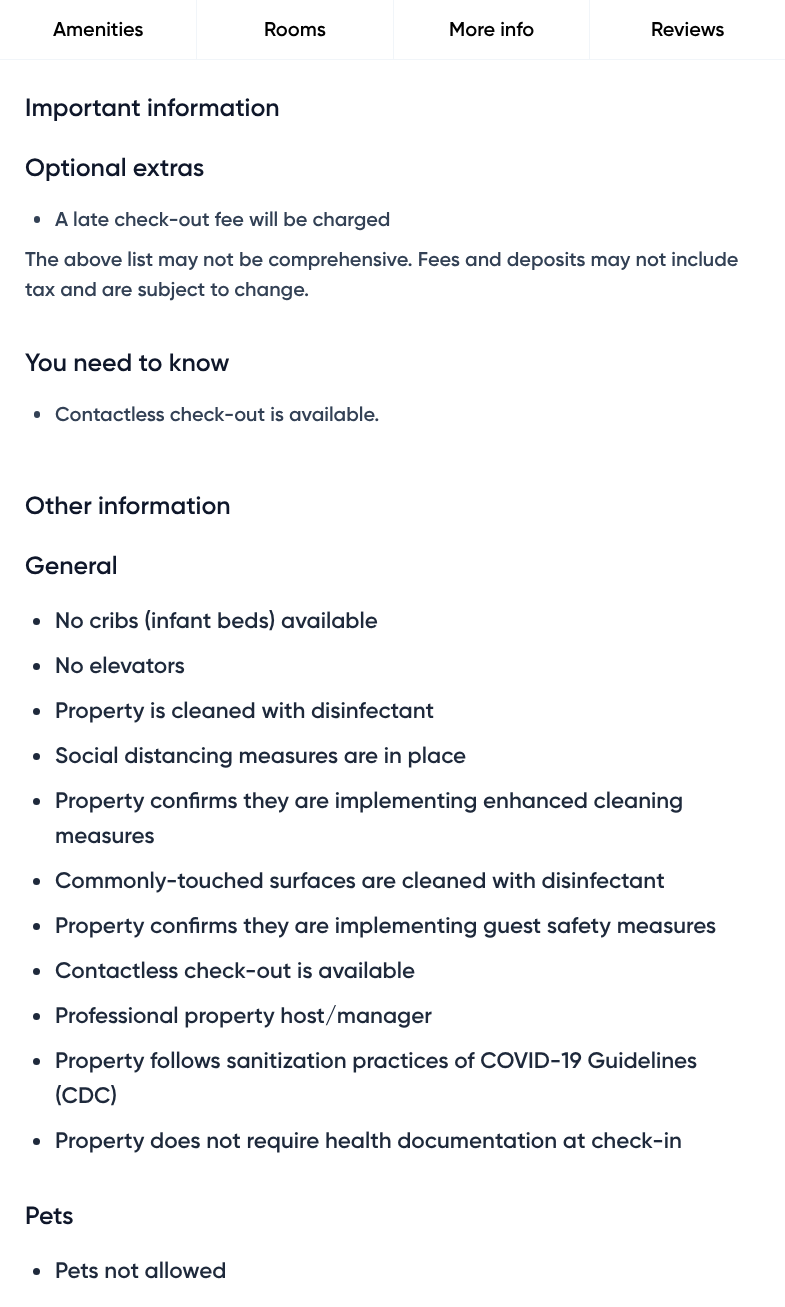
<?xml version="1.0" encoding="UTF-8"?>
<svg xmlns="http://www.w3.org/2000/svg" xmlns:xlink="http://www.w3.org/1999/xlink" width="785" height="1307">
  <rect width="100%" height="100%" fill="#ffffff" />
  <rect y="59" width="785" height="1" fill="#f1f5f9" />
  <rect x="196" width="1" height="60" fill="#f1f5f9" />
  <rect x="393" width="1" height="60" fill="#f1f5f9" />
  <rect x="589" width="1" height="60" fill="#f1f5f9" />
  <rect x="34" y="216" width="6" height="7" rx="3" fill="#334155" />
  <rect x="34" y="411" width="6" height="7" rx="3" fill="#334155" />
  <circle cx="36.5" cy="621.5" r="3.5" fill="#1e293b" />
  <circle cx="36.5" cy="666.5" r="3.5" fill="#1e293b" />
  <circle cx="36.5" cy="711.5" r="3.5" fill="#1e293b" />
  <circle cx="36.5" cy="756.5" r="3.5" fill="#1e293b" />
  <circle cx="36.5" cy="801.5" r="3.5" fill="#1e293b" />
  <circle cx="36.5" cy="881.5" r="3.5" fill="#1e293b" />
  <circle cx="36.5" cy="926.5" r="3.5" fill="#1e293b" />
  <circle cx="36.5" cy="971.5" r="3.5" fill="#1e293b" />
  <circle cx="36.5" cy="1016.5" r="3.5" fill="#1e293b" />
  <circle cx="36.5" cy="1061.5" r="3.5" fill="#1e293b" />
  <circle cx="36.5" cy="1141.5" r="3.5" fill="#1e293b" />
  <circle cx="36.5" cy="1271.5" r="3.5" fill="#1e293b" />
  <text x="53" y="36" style="font-family: Gilroy; font-size: 20px; font-weight: 600; fill: #000000">Amenities</text>
  <text x="264" y="36" style="font-family: Gilroy; font-size: 20px; font-weight: 600; fill: #000000">Rooms</text>
  <text x="449" y="36" style="font-family: Gilroy; font-size: 20px; font-weight: 600; fill: #000000">More info</text>
  <text x="651" y="36" style="font-family: Gilroy; font-size: 20px; font-weight: 600; fill: #000000">Reviews</text>
  <text x="25" y="116" style="font-family: Gilroy; font-size: 25px; font-weight: 600; fill: #0f172a">Important information</text>
  <text x="25" y="176" style="font-family: Gilroy; font-size: 25px; font-weight: 600; fill: #0f172a">Optional extras</text>
  <text x="55" y="226" style="font-family: Gilroy; font-size: 20px; font-weight: 600; fill: #334155">A late check-out fee will be charged</text>
  <text x="25" y="266" style="font-family: Gilroy; font-size: 20px; font-weight: 600; fill: #334155">The above list may not be comprehensive. Fees and deposits may not include</text>
  <text x="25" y="296" style="font-family: Gilroy; font-size: 20px; font-weight: 600; fill: #334155">tax and are subject to change.</text>
  <text x="25" y="371" style="font-family: Gilroy; font-size: 25px; font-weight: 600; fill: #0f172a">You need to know</text>
  <text x="55" y="421" style="font-family: Gilroy; font-size: 20px; font-weight: 600; fill: #334155">Contactless check-out is available.</text>
  <text x="25" y="514" style="font-family: Gilroy; font-size: 25px; font-weight: 600; fill: #0f172a">Other information</text>
  <text x="25" y="574" style="font-family: Gilroy; font-size: 25px; font-weight: 600; fill: #0f172a">General</text>
  <text x="55" y="628" style="font-family: Gilroy; font-size: 22.5px; font-weight: 600; fill: #1e293b">No cribs (infant beds) available</text>
  <text x="55" y="673" style="font-family: Gilroy; font-size: 22.5px; font-weight: 600; fill: #1e293b">No elevators</text>
  <text x="55" y="718" style="font-family: Gilroy; font-size: 22.5px; font-weight: 600; fill: #1e293b">Property is cleaned with disinfectant</text>
  <text x="55" y="763" style="font-family: Gilroy; font-size: 22.5px; font-weight: 600; fill: #1e293b">Social distancing measures are in place</text>
  <text x="55" y="808" style="font-family: Gilroy; font-size: 22.5px; font-weight: 600; fill: #1e293b">Property confirms they are implementing enhanced cleaning</text>
  <text x="55" y="843" style="font-family: Gilroy; font-size: 22.5px; font-weight: 600; fill: #1e293b">measures</text>
  <text x="55" y="888" style="font-family: Gilroy; font-size: 22.5px; font-weight: 600; fill: #1e293b">Commonly-touched surfaces are cleaned with disinfectant</text>
  <text x="55" y="933" style="font-family: Gilroy; font-size: 22.5px; font-weight: 600; fill: #1e293b">Property confirms they are implementing guest safety measures</text>
  <text x="55" y="978" style="font-family: Gilroy; font-size: 22.5px; font-weight: 600; fill: #1e293b">Contactless check-out is available</text>
  <text x="55" y="1023" style="font-family: Gilroy; font-size: 22.5px; font-weight: 600; fill: #1e293b">Professional property host/manager</text>
  <text x="55" y="1068" style="font-family: Gilroy; font-size: 22.5px; font-weight: 600; fill: #1e293b">Property follows sanitization practices of COVID-19 Guidelines</text>
  <text x="55" y="1103" style="font-family: Gilroy; font-size: 22.5px; font-weight: 600; fill: #1e293b">(CDC)</text>
  <text x="55" y="1148" style="font-family: Gilroy; font-size: 22.5px; font-weight: 600; fill: #1e293b">Property does not require health documentation at check-in</text>
  <text x="25" y="1224" style="font-family: Gilroy; font-size: 25px; font-weight: 600; fill: #0f172a">Pets</text>
  <text x="55" y="1278" style="font-family: Gilroy; font-size: 22.5px; font-weight: 600; fill: #1e293b">Pets not allowed</text>
</svg>
